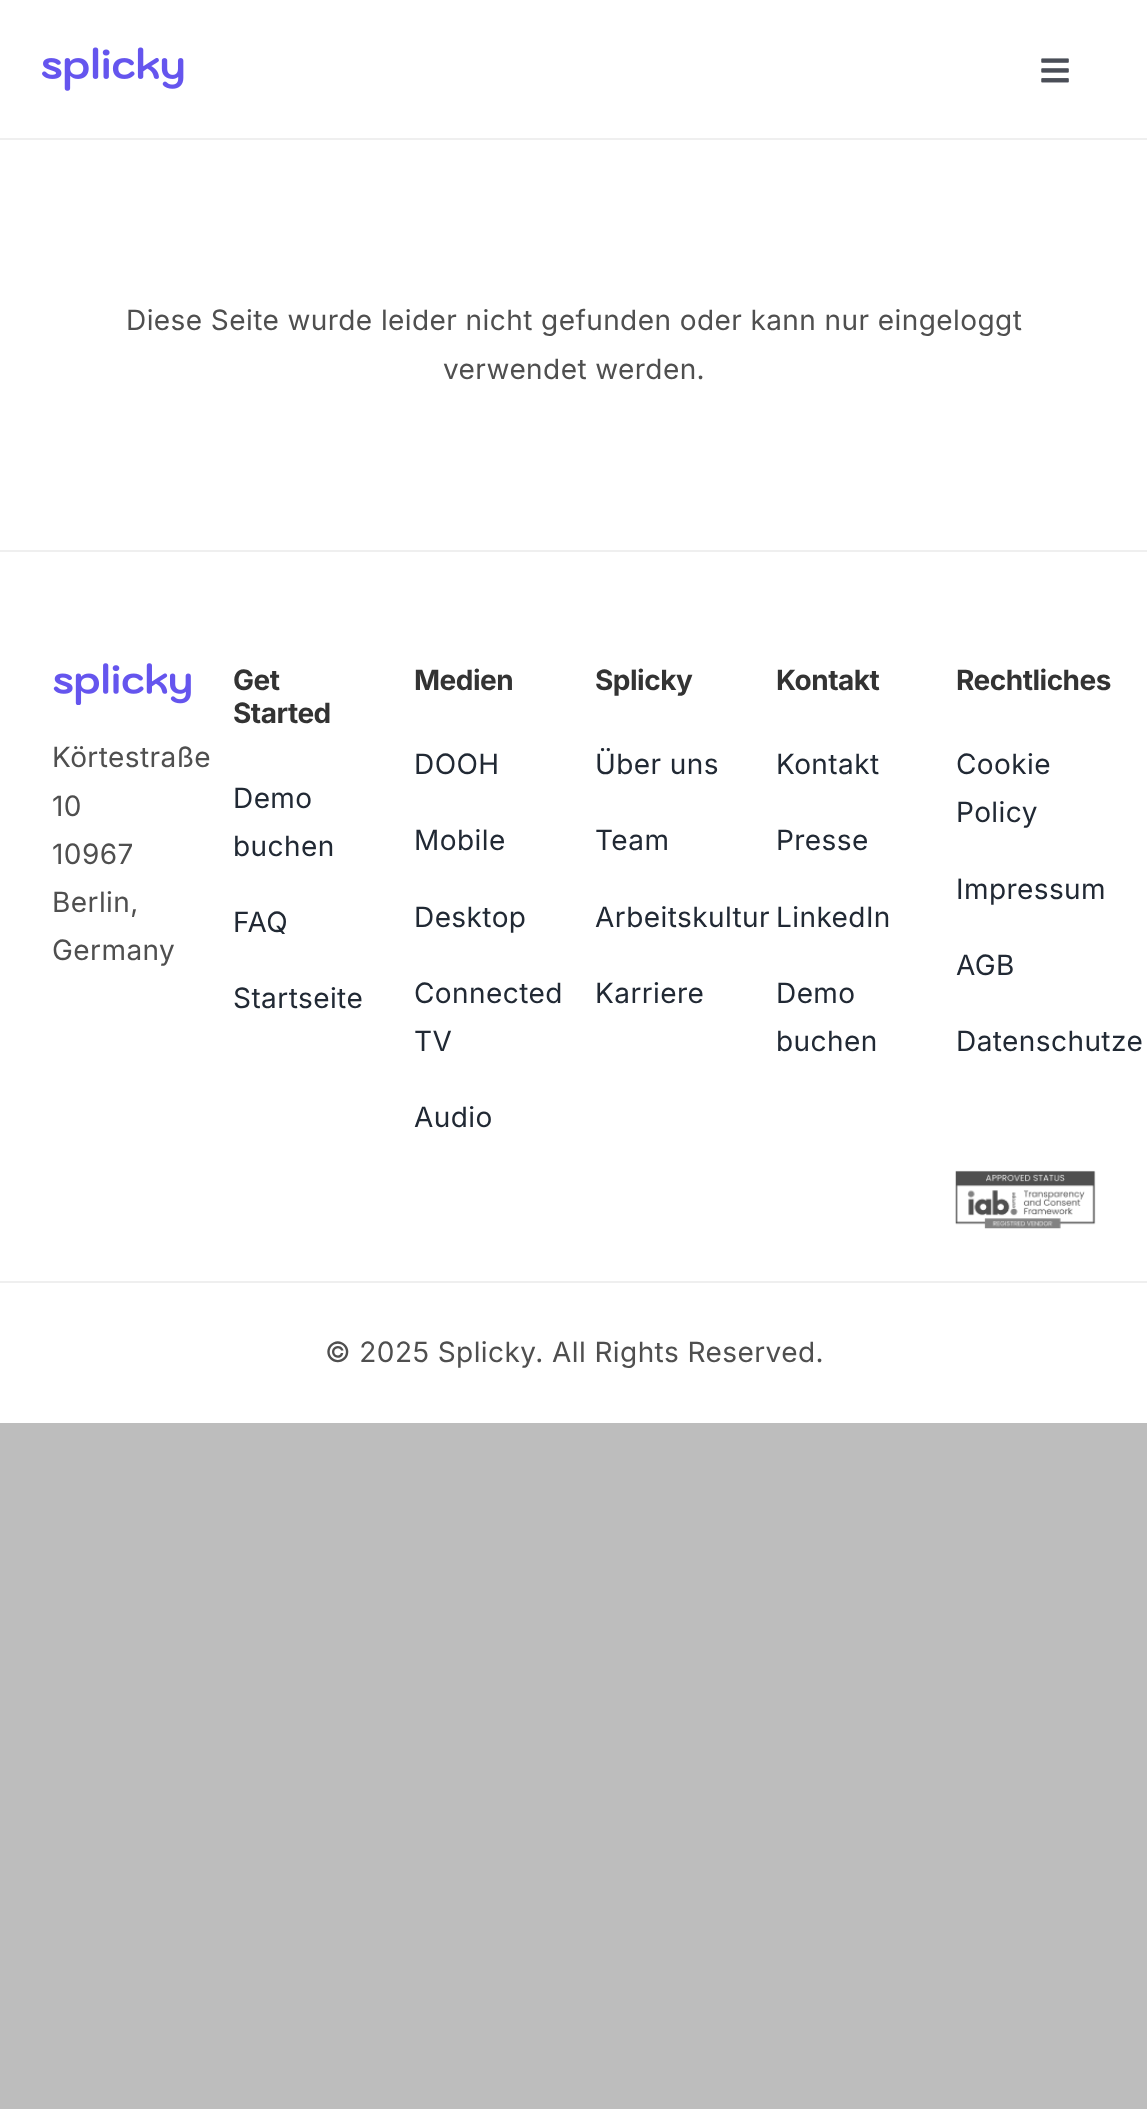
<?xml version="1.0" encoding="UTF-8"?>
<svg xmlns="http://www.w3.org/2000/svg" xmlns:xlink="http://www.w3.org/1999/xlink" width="1147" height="2109">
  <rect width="100%" height="100%" fill="#bdbdbd" />
  <rect width="1147" height="1423" fill="#ffffff" />
  <rect y="138" width="1147" height="2" fill="#efefef" />
  <image x="42" y="47" width="142" height="44" xlink:href="image1.png" />
  <image x="1041" y="58" width="28" height="25" xlink:href="image2.png" />
  <rect y="550" width="1147" height="2" fill="#efefef" />
  <image x="53" y="663" width="138" height="42" xlink:href="image3.png" />
  <image x="955" y="1170" width="141" height="59" xlink:href="image4.png" />
  <rect y="1281" width="1147" height="2" fill="#efefef" />
  <text x="126" y="330" style="font-family: Inter; font-size: 28px; letter-spacing: 0.42px; fill: #4f4f4f">Diese Seite wurde leider nicht gefunden oder kann nur eingeloggt</text>
  <text x="443" y="379" style="font-family: Inter; font-size: 28px; letter-spacing: 0.42px; fill: #4f4f4f">verwendet werden.</text>
  <text x="52" y="767" style="font-family: Inter; font-size: 28px; letter-spacing: 0.42px; fill: #4f4f4f">Körtestraße</text>
  <text x="52" y="816" style="font-family: Inter; font-size: 28px; letter-spacing: 0.42px; fill: #4f4f4f">10</text>
  <text x="52" y="864" style="font-family: Inter; font-size: 28px; letter-spacing: 0.42px; fill: #4f4f4f">10967</text>
  <text x="52" y="912" style="font-family: Inter; font-size: 28px; letter-spacing: 0.42px; fill: #4f4f4f">Berlin,</text>
  <text x="52" y="960" style="font-family: Inter; font-size: 28px; letter-spacing: 0.42px; fill: #4f4f4f">Germany</text>
  <text x="233" y="690" style="font-family: Inter; font-size: 28px; font-weight: bold; letter-spacing: -0.5px; fill: #333333">Get</text>
  <text x="233" y="723" style="font-family: Inter; font-size: 28px; font-weight: bold; letter-spacing: -0.5px; fill: #333333">Started</text>
  <text x="233" y="808" style="font-family: Inter; font-size: 28px; letter-spacing: 0.42px; fill: #212934">Demo</text>
  <text x="233" y="856" style="font-family: Inter; font-size: 28px; letter-spacing: 0.42px; fill: #212934">buchen</text>
  <text x="233" y="932" style="font-family: Inter; font-size: 28px; letter-spacing: 0.42px; fill: #212934">FAQ</text>
  <text x="233" y="1008" style="font-family: Inter; font-size: 28px; letter-spacing: 0.42px; fill: #212934">Startseite</text>
  <text x="414" y="690" style="font-family: Inter; font-size: 28px; font-weight: bold; letter-spacing: -0.5px; fill: #333333">Medien</text>
  <text x="414" y="774" style="font-family: Inter; font-size: 28px; letter-spacing: 0.42px; fill: #212934">DOOH</text>
  <text x="414" y="850" style="font-family: Inter; font-size: 28px; letter-spacing: 0.42px; fill: #212934">Mobile</text>
  <text x="414" y="927" style="font-family: Inter; font-size: 28px; letter-spacing: 0.42px; fill: #212934">Desktop</text>
  <text x="414" y="1003" style="font-family: Inter; font-size: 28px; letter-spacing: 0.42px; fill: #212934">Connected</text>
  <text x="414" y="1051" style="font-family: Inter; font-size: 28px; letter-spacing: 0.42px; fill: #212934">TV</text>
  <text x="414" y="1127" style="font-family: Inter; font-size: 28px; letter-spacing: 0.42px; fill: #212934">Audio</text>
  <text x="595" y="690" style="font-family: Inter; font-size: 28px; font-weight: bold; letter-spacing: -0.5px; fill: #333333">Splicky</text>
  <text x="595" y="774" style="font-family: Inter; font-size: 28px; letter-spacing: 0.42px; fill: #212934">Über uns</text>
  <text x="595" y="850" style="font-family: Inter; font-size: 28px; letter-spacing: 0.42px; fill: #212934">Team</text>
  <text x="595" y="927" style="font-family: Inter; font-size: 28px; letter-spacing: 0.42px; fill: #212934">Arbeitskultur</text>
  <text x="595" y="1003" style="font-family: Inter; font-size: 28px; letter-spacing: 0.42px; fill: #212934">Karriere</text>
  <text x="776" y="690" style="font-family: Inter; font-size: 28px; font-weight: bold; letter-spacing: -0.5px; fill: #333333">Kontakt</text>
  <text x="776" y="774" style="font-family: Inter; font-size: 28px; letter-spacing: 0.42px; fill: #212934">Kontakt</text>
  <text x="776" y="850" style="font-family: Inter; font-size: 28px; letter-spacing: 0.42px; fill: #212934">Presse</text>
  <text x="776" y="927" style="font-family: Inter; font-size: 28px; letter-spacing: 0.42px; fill: #212934">LinkedIn</text>
  <text x="776" y="1003" style="font-family: Inter; font-size: 28px; letter-spacing: 0.42px; fill: #212934">Demo</text>
  <text x="776" y="1051" style="font-family: Inter; font-size: 28px; letter-spacing: 0.42px; fill: #212934">buchen</text>
  <text x="956" y="690" style="font-family: Inter; font-size: 28px; font-weight: bold; letter-spacing: -0.5px; fill: #333333">Rechtliches</text>
  <text x="956" y="774" style="font-family: Inter; font-size: 28px; letter-spacing: 0.42px; fill: #212934">Cookie</text>
  <text x="956" y="822" style="font-family: Inter; font-size: 28px; letter-spacing: 0.42px; fill: #212934">Policy</text>
  <text x="956" y="899" style="font-family: Inter; font-size: 28px; letter-spacing: 0.42px; fill: #212934">Impressum</text>
  <text x="956" y="975" style="font-family: Inter; font-size: 28px; letter-spacing: 0.42px; fill: #212934">AGB</text>
  <text x="956" y="1051" style="font-family: Inter; font-size: 28px; letter-spacing: 0.42px; fill: #212934">Datenschutze</text>
  <text x="325" y="1362" style="font-family: Inter; font-size: 28px; letter-spacing: 0.42px; fill: #4f4f4f">© 2025 Splicky. All Rights Reserved.</text>
</svg>
